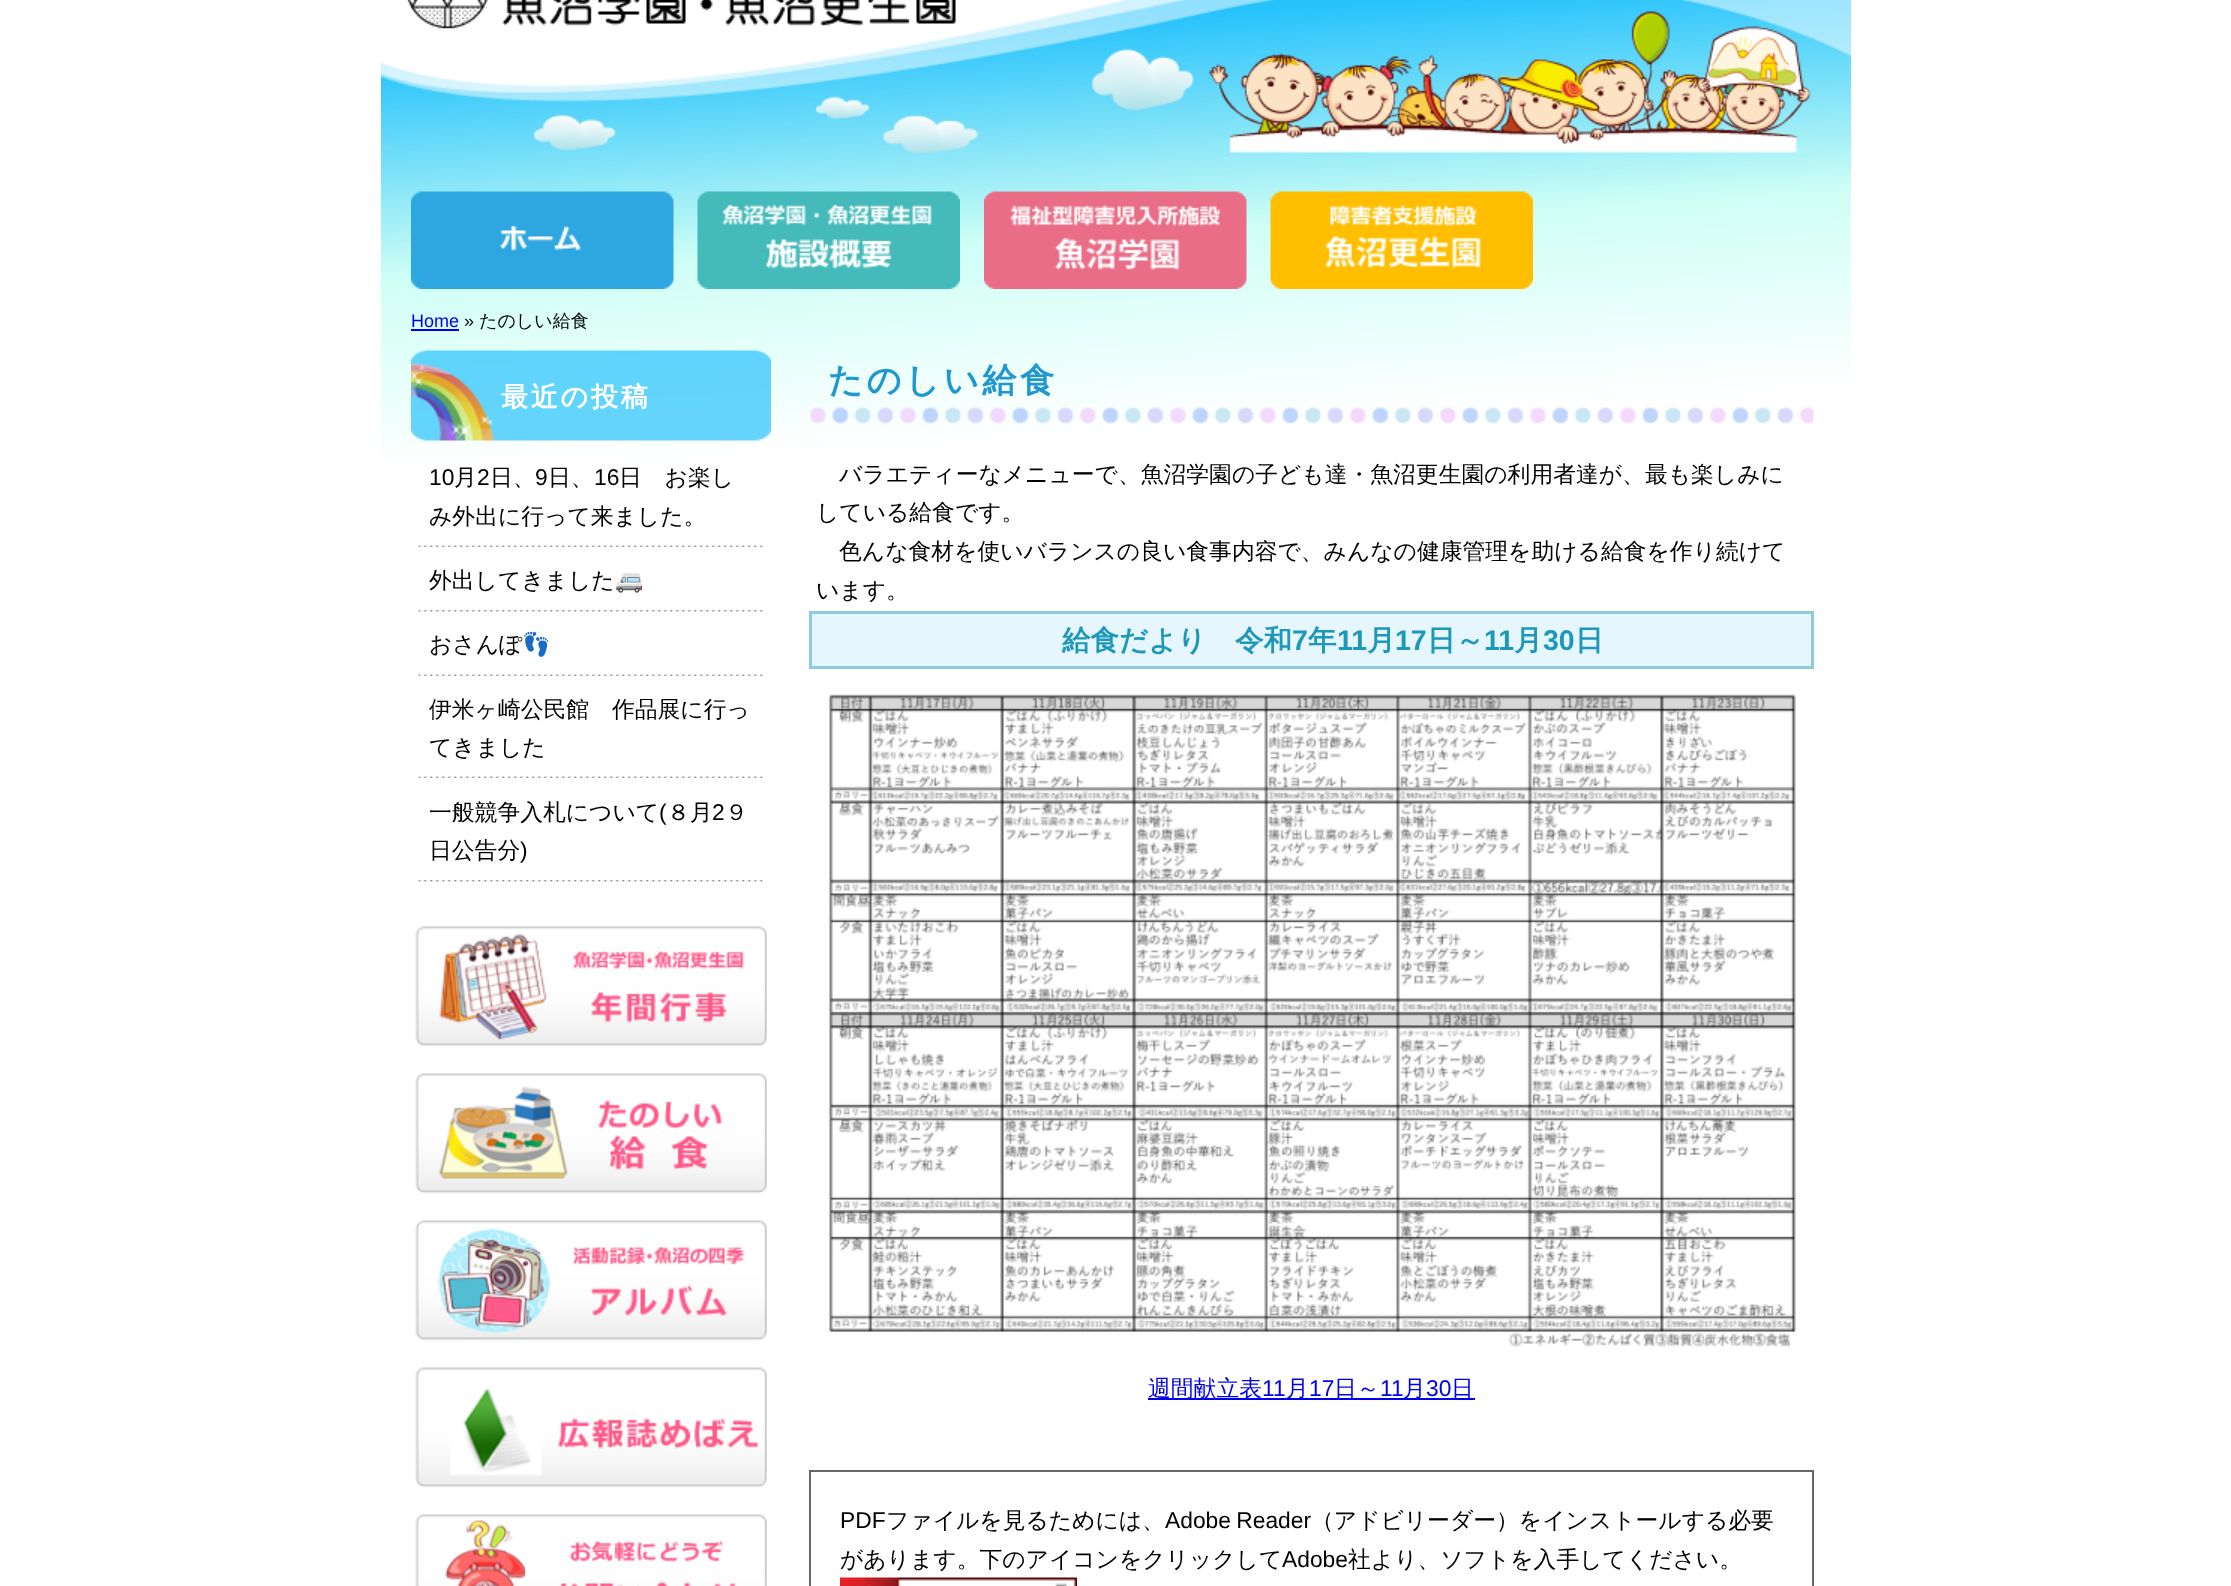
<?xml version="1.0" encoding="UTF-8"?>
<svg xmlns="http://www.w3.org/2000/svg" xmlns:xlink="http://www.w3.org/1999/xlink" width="2231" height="1586">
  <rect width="100%" height="100%" fill="#ffffff" />
  <image x="381" y="0" width="1470" height="459" xlink:href="image1.png" />
  <image x="407" y="0" width="549" height="29" xlink:href="image2.png" />
  <image x="411" y="191" width="263" height="98" xlink:href="image3.png" />
  <image x="697" y="191" width="263" height="98" xlink:href="image4.png" />
  <image x="984" y="191" width="263" height="98" xlink:href="image5.png" />
  <image x="1270" y="191" width="263" height="98" xlink:href="image6.png" />
  <rect x="411" y="329" width="48" height="2" fill="#0000ee" />
  <image x="411" y="350" width="360" height="91" xlink:href="image7.png" />
  <image x="418" y="545" width="346" height="2" xlink:href="image8.png" />
  <image x="418" y="610" width="346" height="2" xlink:href="image9.png" />
  <image x="418" y="674" width="346" height="2" xlink:href="image8.png" />
  <image x="418" y="776" width="346" height="2" xlink:href="image8.png" />
  <image x="418" y="880" width="346" height="2" xlink:href="image9.png" />
  <image x="415" y="926" width="352" height="121" xlink:href="image10.png" />
  <image x="415" y="1073" width="352" height="121" xlink:href="image11.png" />
  <image x="415" y="1220" width="352" height="121" xlink:href="image12.png" />
  <image x="415" y="1367" width="352" height="121" xlink:href="image13.png" />
  <image x="415" y="1514" width="352" height="72" xlink:href="image14.png" />
  <image x="810" y="407" width="1004" height="17" xlink:href="image15.png" />
  <rect x="810.5" y="612.5" width="1002" height="55" fill="#e5f6ff" stroke="#8ecbdc" stroke-width="3" />
  <image x="829" y="694" width="967" height="653" xlink:href="image16.png" />
  <rect x="1148" y="1398" width="327" height="2" fill="#0000ee" />
  <rect x="810" y="1471" width="1003" height="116" fill="none" stroke="#666666" stroke-width="2" />
  <image x="840" y="1577" width="237" height="9" xlink:href="image17.png" />
  <text x="411" y="327" style="font-family: Liberation Sans; font-size: 18px; fill: #0000ee">Home</text>
  <text x="464" y="327" style="font-family: Liberation Sans; font-size: 18px; fill: #000000">»</text>
  <text x="479" y="327" style="font-family: WenQuanYi Zen Hei; font-size: 18px; font-weight: 500; fill: #000000">たのしい給食</text>
  <text x="501" y="406" style="font-family: WenQuanYi Zen Hei; font-size: 27px; font-weight: bold; letter-spacing: 2.75px; fill: #ffffff">最近の投稿</text>
  <text x="429" y="485" style="font-family: Liberation Sans; font-size: 22.8px; fill: #000000">10</text>
  <text x="454" y="485" style="font-family: WenQuanYi Zen Hei; font-size: 22.8px; font-weight: 500; fill: #000000">月</text>
  <text x="477" y="485" style="font-family: Liberation Sans; font-size: 22.8px; fill: #000000">2</text>
  <text x="490" y="485" style="font-family: WenQuanYi Zen Hei; font-size: 22.8px; font-weight: 500; fill: #000000">日、</text>
  <text x="535" y="485" style="font-family: Liberation Sans; font-size: 22.8px; fill: #000000">9</text>
  <text x="548" y="485" style="font-family: WenQuanYi Zen Hei; font-size: 22.8px; font-weight: 500; fill: #000000">日、</text>
  <text x="594" y="485" style="font-family: Liberation Sans; font-size: 22.8px; fill: #000000">16</text>
  <text x="619" y="485" style="font-family: WenQuanYi Zen Hei; font-size: 22.8px; font-weight: 500; fill: #000000">日　お楽し</text>
  <text x="429" y="524" style="font-family: WenQuanYi Zen Hei; font-size: 22.8px; font-weight: 500; fill: #000000">み外出に行って来ました。</text>
  <text x="429" y="588" style="font-family: WenQuanYi Zen Hei; font-size: 22.8px; font-weight: 500; fill: #000000">外出してきました</text>
  <text x="615" y="588" style="font-family: Noto Color Emoji; font-size: 22.8px; fill: #000000">🚐</text>
  <text x="429" y="652" style="font-family: WenQuanYi Zen Hei; font-size: 22.8px; font-weight: 500; fill: #000000">おさんぽ</text>
  <text x="522" y="652" style="font-family: Noto Color Emoji; font-size: 22.8px; fill: #000000">👣</text>
  <text x="429" y="717" style="font-family: WenQuanYi Zen Hei; font-size: 22.8px; font-weight: 500; fill: #000000">伊米ヶ崎公民館　作品展に行っ</text>
  <text x="429" y="755" style="font-family: WenQuanYi Zen Hei; font-size: 22.8px; font-weight: 500; fill: #000000">てきました</text>
  <text x="429" y="820" style="font-family: WenQuanYi Zen Hei; font-size: 22.8px; font-weight: 500; fill: #000000">一般競争入札について</text>
  <text x="659" y="820" style="font-family: Liberation Sans; font-size: 22.8px; fill: #000000">(</text>
  <text x="667" y="820" style="font-family: WenQuanYi Zen Hei; font-size: 22.8px; font-weight: 500; fill: #000000">８月</text>
  <text x="712" y="820" style="font-family: Liberation Sans; font-size: 22.8px; fill: #000000">2</text>
  <text x="725" y="820" style="font-family: WenQuanYi Zen Hei; font-size: 22.8px; font-weight: 500; fill: #000000">９</text>
  <text x="429" y="858" style="font-family: WenQuanYi Zen Hei; font-size: 22.8px; font-weight: 500; fill: #000000">日公告分</text>
  <text x="520" y="858" style="font-family: Liberation Sans; font-size: 22.8px; fill: #000000">)</text>
  <text x="828" y="392" style="font-family: WenQuanYi Zen Hei; font-size: 34.25px; font-weight: bold; letter-spacing: 3.5px; fill: #1f97d1">たのしい給食</text>
  <text x="839" y="482" style="font-family: WenQuanYi Zen Hei; font-size: 22.8px; font-weight: 500; fill: #000000">バラエティーなメニューで、魚沼学園の子ども達・魚沼更生園の利用者達が、最も楽しみに</text>
  <text x="816" y="520" style="font-family: WenQuanYi Zen Hei; font-size: 22.8px; font-weight: 500; fill: #000000">している給食です。</text>
  <text x="839" y="559" style="font-family: WenQuanYi Zen Hei; font-size: 22.8px; font-weight: 500; fill: #000000">色んな食材を使いバランスの良い食事内容で、みんなの健康管理を助ける給食を作り続けて</text>
  <text x="816" y="598" style="font-family: WenQuanYi Zen Hei; font-size: 22.8px; font-weight: 500; fill: #000000">います。</text>
  <text x="1062" y="650" style="font-family: WenQuanYi Zen Hei; font-size: 28.5px; font-weight: bold; fill: #1e98b9">給食だより　令和</text>
  <text x="1292" y="650" style="font-family: Liberation Sans; font-size: 28.5px; font-weight: bold; fill: #1e98b9">7</text>
  <text x="1308" y="650" style="font-family: WenQuanYi Zen Hei; font-size: 28.5px; font-weight: bold; fill: #1e98b9">年</text>
  <text x="1337" y="650" style="font-family: Liberation Sans; font-size: 28.5px; font-weight: bold; fill: #1e98b9">11</text>
  <text x="1367" y="650" style="font-family: WenQuanYi Zen Hei; font-size: 28.5px; font-weight: bold; fill: #1e98b9">月</text>
  <text x="1395" y="650" style="font-family: Liberation Sans; font-size: 28.5px; font-weight: bold; fill: #1e98b9">17</text>
  <text x="1427" y="650" style="font-family: WenQuanYi Zen Hei; font-size: 28.5px; font-weight: bold; fill: #1e98b9">日～</text>
  <text x="1484" y="650" style="font-family: Liberation Sans; font-size: 28.5px; font-weight: bold; fill: #1e98b9">11</text>
  <text x="1514" y="650" style="font-family: WenQuanYi Zen Hei; font-size: 28.5px; font-weight: bold; fill: #1e98b9">月</text>
  <text x="1543" y="650" style="font-family: Liberation Sans; font-size: 28.5px; font-weight: bold; fill: #1e98b9">30</text>
  <text x="1575" y="650" style="font-family: WenQuanYi Zen Hei; font-size: 28.5px; font-weight: bold; fill: #1e98b9">日</text>
  <text x="1148" y="1396" style="font-family: WenQuanYi Zen Hei; font-size: 22.8px; font-weight: 500; fill: #0000ee">週間献立表</text>
  <text x="1262" y="1396" style="font-family: Liberation Sans; font-size: 22.8px; fill: #0000ee">11</text>
  <text x="1286" y="1396" style="font-family: WenQuanYi Zen Hei; font-size: 22.8px; font-weight: 500; fill: #0000ee">月</text>
  <text x="1309" y="1396" style="font-family: Liberation Sans; font-size: 22.8px; fill: #0000ee">17</text>
  <text x="1334" y="1396" style="font-family: WenQuanYi Zen Hei; font-size: 22.8px; font-weight: 500; fill: #0000ee">日～</text>
  <text x="1380" y="1396" style="font-family: Liberation Sans; font-size: 22.8px; fill: #0000ee">11</text>
  <text x="1403" y="1396" style="font-family: WenQuanYi Zen Hei; font-size: 22.8px; font-weight: 500; fill: #0000ee">月</text>
  <text x="1426" y="1396" style="font-family: Liberation Sans; font-size: 22.8px; fill: #0000ee">30</text>
  <text x="1451" y="1396" style="font-family: WenQuanYi Zen Hei; font-size: 22.8px; font-weight: 500; fill: #0000ee">日</text>
  <text x="840" y="1528" style="font-family: Liberation Sans; font-size: 22.8px; fill: #000000">PDF</text>
  <text x="886" y="1528" style="font-family: WenQuanYi Zen Hei; font-size: 22.8px; font-weight: 500; fill: #000000">ファイルを見るためには、</text>
  <text x="1165" y="1528" word-spacing="-1" style="font-family: Liberation Sans; font-size: 22.8px; fill: #000000">Adobe Reader</text>
  <text x="1311" y="1528" style="font-family: WenQuanYi Zen Hei; font-size: 22.8px; font-weight: 500; fill: #000000">（アドビリーダー）をインストールする必要</text>
  <text x="840" y="1567" style="font-family: WenQuanYi Zen Hei; font-size: 22.8px; font-weight: 500; fill: #000000">があります。下のアイコンをクリックして</text>
  <text x="1282" y="1567" style="font-family: Liberation Sans; font-size: 22.8px; fill: #000000">Adobe</text>
  <text x="1348" y="1567" style="font-family: WenQuanYi Zen Hei; font-size: 22.8px; font-weight: 500; fill: #000000">社より、ソフトを入手してください。</text>
</svg>
